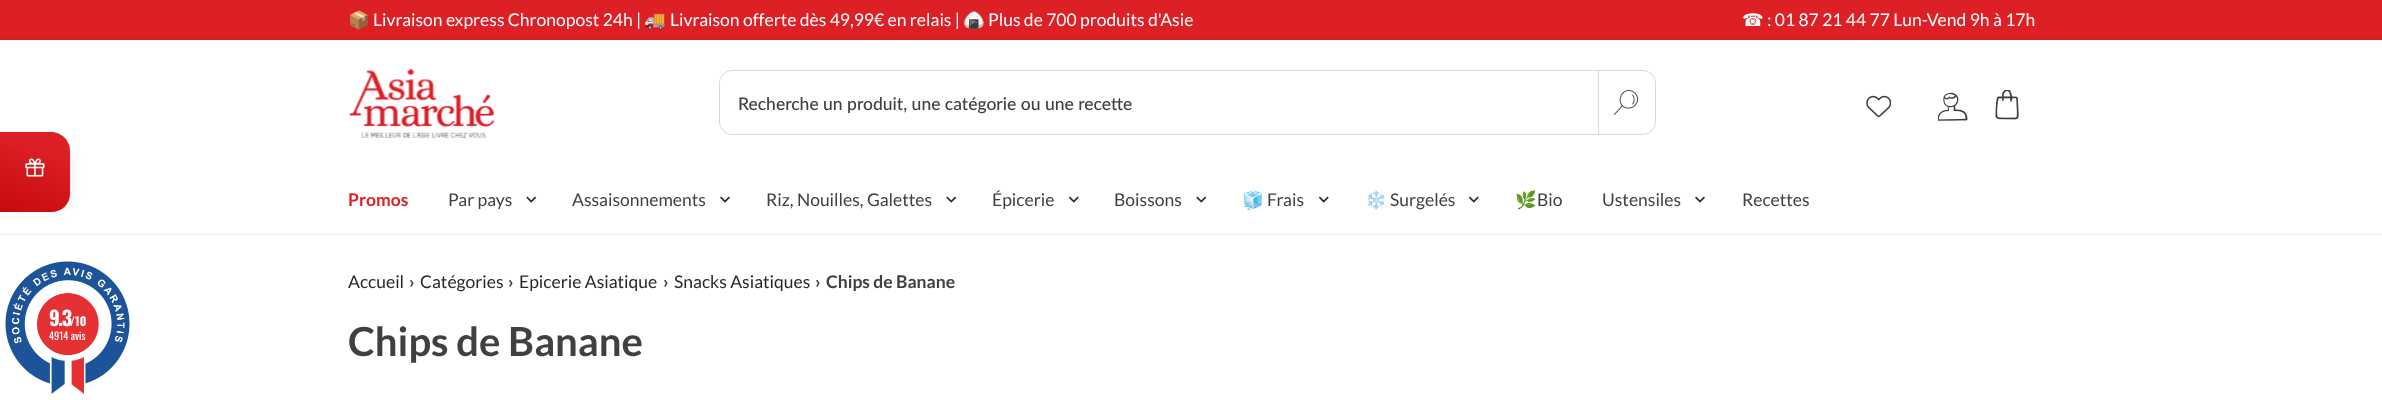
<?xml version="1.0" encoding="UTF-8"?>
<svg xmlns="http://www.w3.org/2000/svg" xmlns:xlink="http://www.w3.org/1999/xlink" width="2382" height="400">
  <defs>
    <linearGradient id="g1" gradientUnits="userSpaceOnUse" x1="52" y1="126" x2="5.2" y2="256"><stop offset="0.17" stop-color="#dd1f26" /><stop offset="1" stop-color="#b90000" /></linearGradient>
    <clipPath id="clip1"><rect x="720" y="71" width="935" height="63" rx="11" /></clipPath>
  </defs>
  <rect width="100%" height="100%" fill="#ffffff" />
  <rect width="2382" height="40" fill="#dd1f26" />
  <rect x="-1" y="39" width="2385" height="195" fill="#000000" fill-opacity="0.08" filter="blur(2px)" />
  <rect y="40" width="2382" height="193" fill="#ffffff" />
  <rect x="-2" y="145" width="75" height="65" rx="16" fill="#444444" fill-opacity="0.08" filter="blur(5px)" />
  <path d="M 70 151 v 43 c 0 10 -8 18 -19 18 h -51 v -80 h 51 c 11 0 19 9 19 19 z" fill="url(#g1)" />
  <image x="25" y="158" width="20" height="19" xlink:href="image1.png" />
  <image x="349" y="68" width="146" height="70" xlink:href="image2.png" />
  <rect x="719.5" y="70.5" width="936" height="64" rx="12.5" fill="none" stroke="#d9d9d9" />
  <g clip-path="url(#clip1)">
    <path d="M 733 71 h 866 v 63 h -866 c -7 0 -13 -6 -13 -13 v -37 c 0 -7 6 -13 13 -13 z" fill="#ffffff" />
  </g>
  <rect x="1598" y="71" width="1" height="63" fill="#d9d9d9" />
  <image x="1614" y="90" width="25" height="25" xlink:href="image3.png" />
  <image x="1866" y="95" width="25" height="23" xlink:href="image4.png" />
  <image x="1938" y="92" width="30" height="29" xlink:href="image5.png" />
  <image x="1995" y="90" width="24" height="30" xlink:href="image6.png" />
  <image x="526" y="196" width="11" height="7" xlink:href="image7.png" />
  <image x="720" y="196" width="10" height="7" xlink:href="image8.png" />
  <image x="946" y="196" width="11" height="7" xlink:href="image7.png" />
  <image x="1068" y="196" width="11" height="7" xlink:href="image9.png" />
  <image x="1196" y="196" width="11" height="7" xlink:href="image7.png" />
  <image x="1318" y="196" width="11" height="7" xlink:href="image9.png" />
  <image x="1468" y="196" width="11" height="7" xlink:href="image9.png" />
  <image x="1695" y="196" width="10" height="7" xlink:href="image8.png" />
  <image x="5" y="261" width="125" height="133" xlink:href="image10.png" />
  <text x="348" y="26" style="font-family: Noto Color Emoji; font-size: 17.5px; fill: #ffffff">📦</text>
  <text x="373" y="26" style="font-family: Lato; font-size: 17.5px; fill: #ffffff">Livraison express Chronopost 24h |</text>
  <text x="644" y="26" style="font-family: Noto Color Emoji; font-size: 17.5px; fill: #ffffff">🚚</text>
  <text x="670" y="26" style="font-family: Lato; font-size: 17.5px; fill: #ffffff">Livraison offerte dès 49,99€ en relais |</text>
  <text x="963" y="26" style="font-family: Noto Color Emoji; font-size: 17.5px; fill: #ffffff">🍙</text>
  <text x="988" y="26" style="font-family: Lato; font-size: 17.5px; fill: #ffffff">Plus de 700 produits d'Asie</text>
  <text x="1742" y="26" style="font-family: DejaVu Sans; font-size: 17.5px; fill: #ffffff">☎</text>
  <text x="1767" y="26" style="font-family: Lato; font-size: 17.5px; fill: #ffffff">: 01 87 21 44 77 Lun-Vend 9h à 17h</text>
  <text x="738" y="110" style="font-family: Lato; font-size: 17.5px; font-weight: 500; fill: #404040">Recherche un produit, une catégorie ou une recette</text>
  <text x="348" y="206" style="font-family: Lato; font-size: 17.5px; font-weight: bold; fill: #dd1f26">Promos</text>
  <text x="448" y="206" style="font-family: Lato; font-size: 17.5px; fill: #404040">Par pays</text>
  <text x="572" y="206" style="font-family: Lato; font-size: 17.5px; fill: #404040">Assaisonnements</text>
  <text x="766" y="206" style="font-family: Lato; font-size: 17.5px; fill: #404040">Riz, Nouilles, Galettes</text>
  <text x="992" y="206" style="font-family: Lato; font-size: 17.5px; fill: #404040">Épicerie</text>
  <text x="1114" y="206" style="font-family: Lato; font-size: 17.5px; fill: #404040">Boissons</text>
  <text x="1242" y="206" style="font-family: Noto Color Emoji; font-size: 17.5px; fill: #404040">🧊</text>
  <text x="1267" y="206" style="font-family: Lato; font-size: 17.5px; fill: #404040">Frais</text>
  <text x="1365" y="206" style="font-family: Noto Color Emoji; font-size: 17.5px; fill: #404040">❄️</text>
  <text x="1390" y="206" style="font-family: Lato; font-size: 17.5px; fill: #404040">Surgelés</text>
  <text x="1515" y="206" style="font-family: Noto Color Emoji; font-size: 17.5px; fill: #404040">🌿</text>
  <text x="1537" y="206" style="font-family: Lato; font-size: 17.5px; fill: #404040">Bio</text>
  <text x="1602" y="206" style="font-family: Lato; font-size: 17.5px; fill: #404040">Ustensiles</text>
  <text x="1742" y="206" style="font-family: Lato; font-size: 17.5px; fill: #404040">Recettes</text>
  <text x="348" y="288" style="font-family: Lato; font-size: 17.5px; fill: #2c2528">Accueil</text>
  <text x="409" y="288" style="font-family: Lato; font-size: 17.5px; font-weight: bold; fill: #404040">›</text>
  <text x="420" y="288" style="font-family: Lato; font-size: 17.5px; fill: #2c2528">Catégories</text>
  <text x="508" y="288" style="font-family: Lato; font-size: 17.5px; font-weight: bold; fill: #404040">›</text>
  <text x="519" y="288" style="font-family: Lato; font-size: 17.5px; fill: #2c2528">Epicerie Asiatique</text>
  <text x="663" y="288" style="font-family: Lato; font-size: 17.5px; font-weight: bold; fill: #404040">›</text>
  <text x="674" y="288" style="font-family: Lato; font-size: 17.5px; fill: #2c2528">Snacks Asiatiques</text>
  <text x="815" y="288" style="font-family: Lato; font-size: 17.5px; font-weight: bold; fill: #404040">›</text>
  <text x="826" y="288" style="font-family: Lato; font-size: 17.5px; font-weight: bold; fill: #404040">Chips de Banane</text>
  <text x="348" y="356" style="font-family: Lato; font-size: 40px; font-weight: bold; fill: #404040">Chips de Banane</text>
  <text x="49" y="326" style="font-family: Oswald; font-size: 20px; font-weight: bold; letter-spacing: -1.5px; fill: #ffffff">9.3</text>
  <text x="70" y="326" style="font-family: Oswald; font-size: 12px; font-weight: bold; fill: #ffffff">/10</text>
  <text x="49" y="340" style="font-family: Oswald; font-size: 10.5px; fill: #ffffff">4914 avis</text>
</svg>
